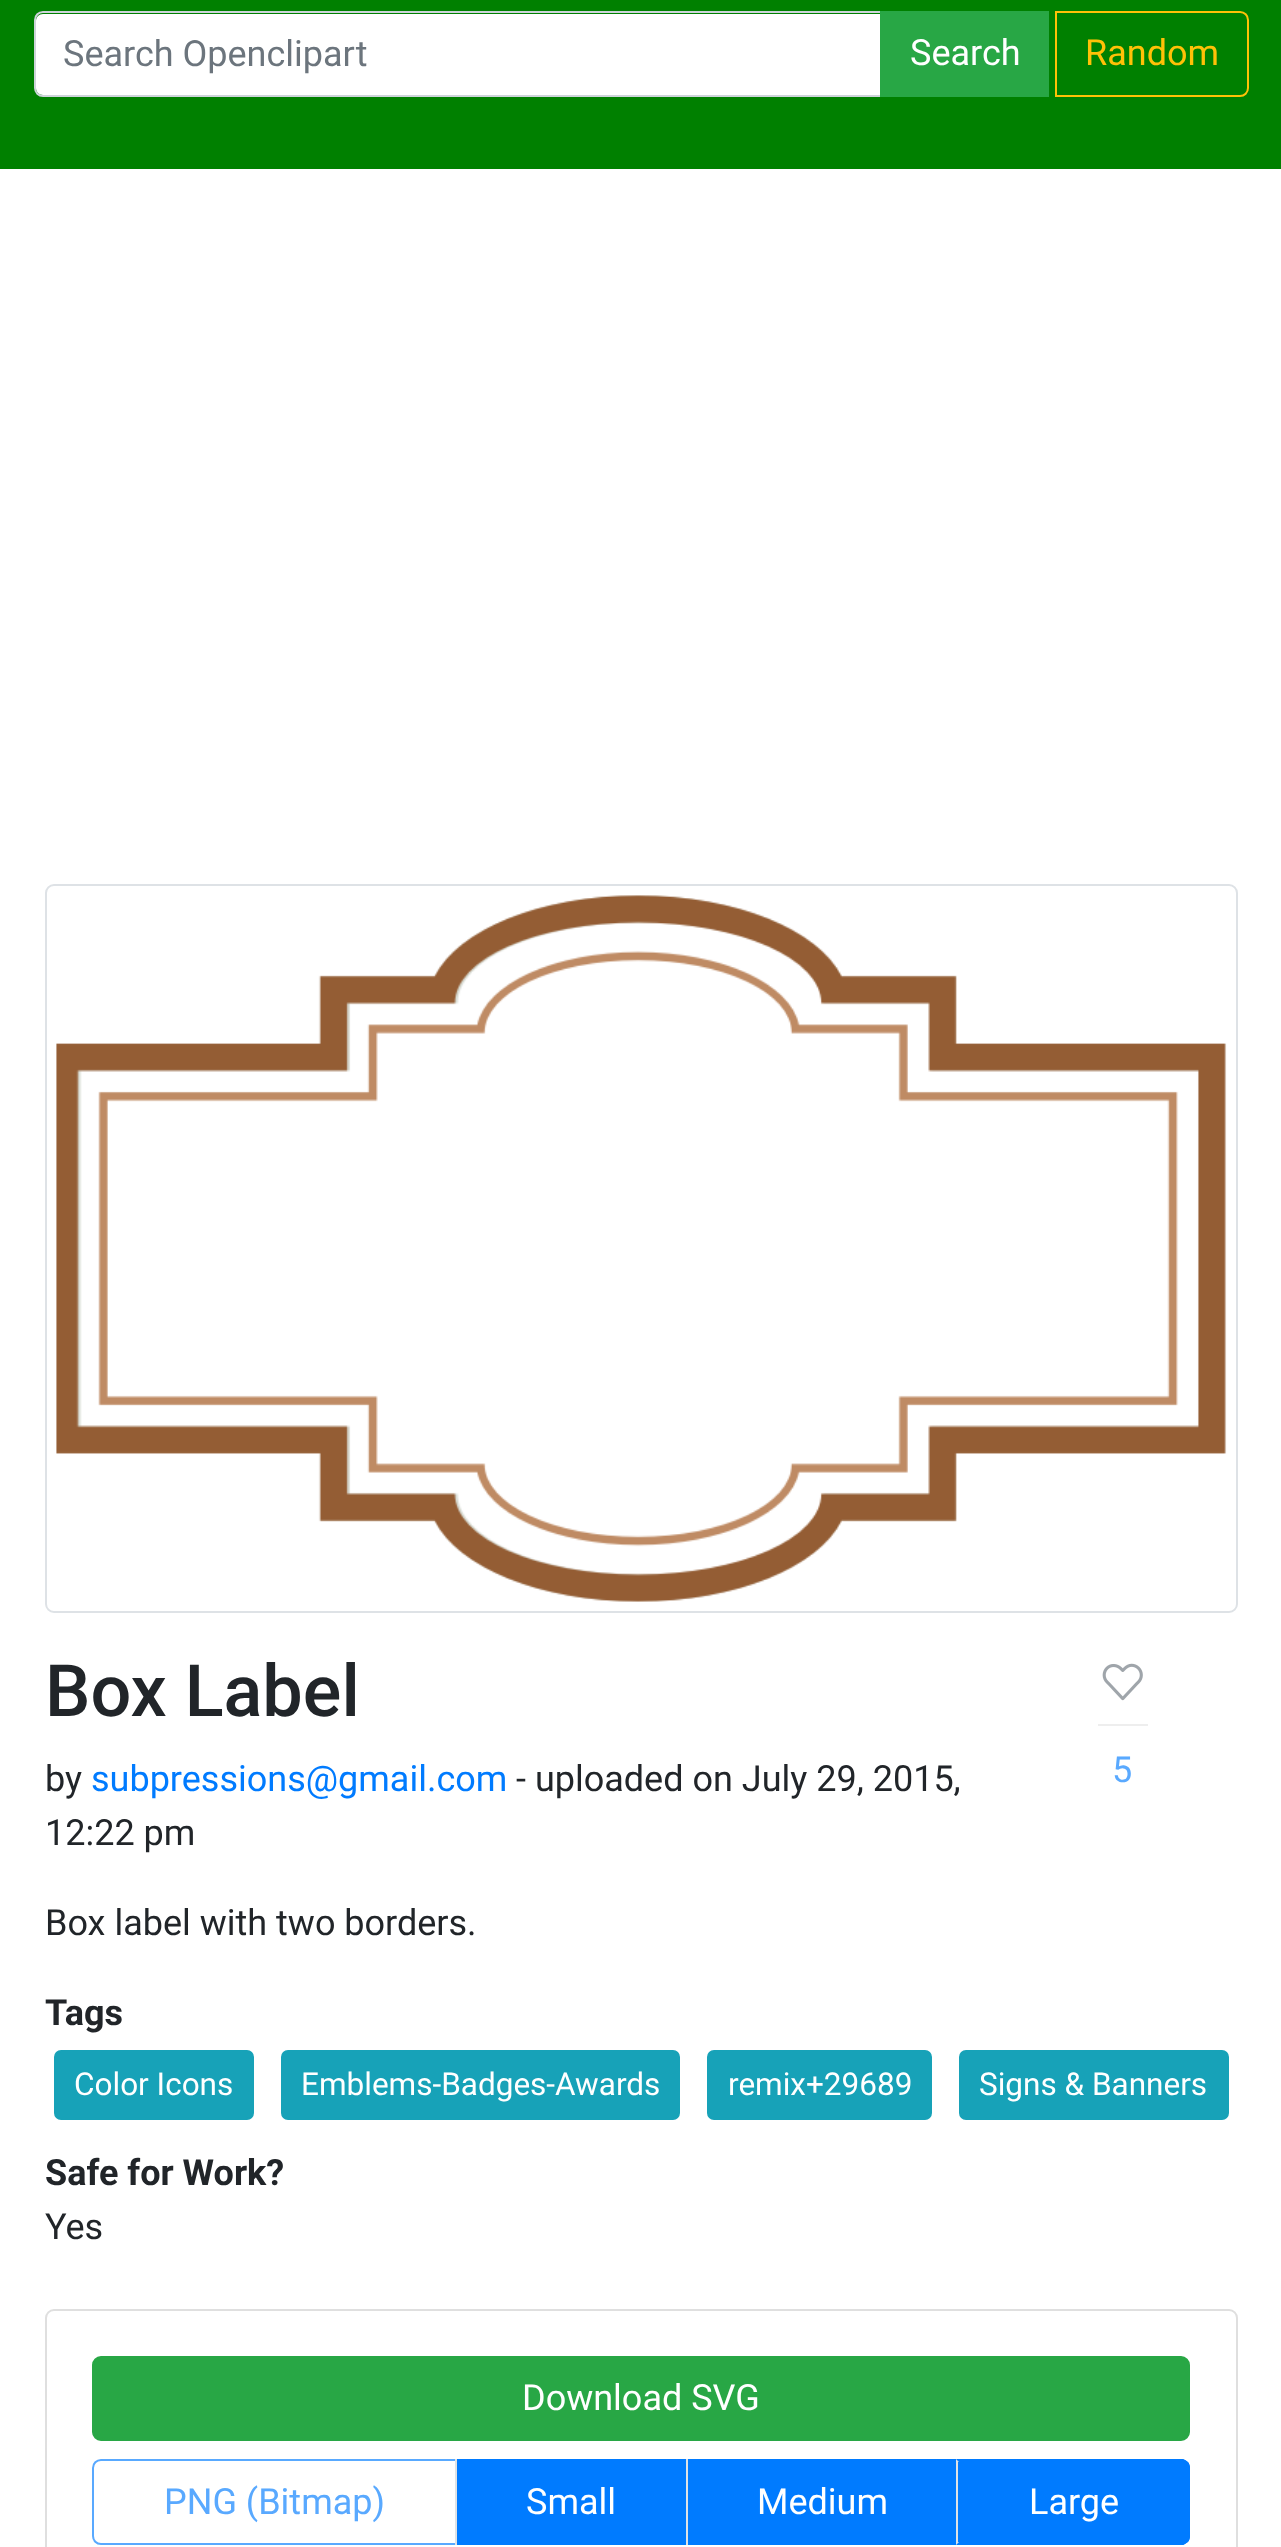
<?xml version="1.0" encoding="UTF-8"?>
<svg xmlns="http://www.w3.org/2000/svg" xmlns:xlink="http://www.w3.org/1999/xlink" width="1281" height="2547">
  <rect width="100%" height="100%" fill="#ffffff" />
  <rect width="1281" height="169" fill="#008000" />
  <path d="M 43 14 h 837 v 81 h -837 c -4 0 -7 -3 -7 -7 v -67 c 0 -4 3 -7 7 -7 z" fill="#ffffff" />
  <path d="M 43 12 h 838 v 84 h -838 c -4.5 0 -8 -3.5 -8 -8 v -68 c 0 -4.5 3.5 -8 8 -8 z" fill="none" stroke="#ced4da" stroke-width="2" />
  <rect x="880" y="11" width="169" height="86" fill="#28a745" />
  <path d="M 1056 12 h 184 c 4.5 0 8 3.5 8 8 v 68 c 0 4.5 -3.5 8 -8 8 h -184 z" fill="none" stroke="#ffc107" stroke-width="2" />
  <rect x="46" y="885" width="1191" height="727" rx="8" fill="none" stroke="#dee2e6" stroke-width="2" />
  <image x="56" y="895" width="1171" height="707" xlink:href="image1.png" />
  <image x="1102" y="1663" width="41" height="38" xlink:href="image2.png" />
  <rect x="1098" y="1724" width="50" height="2" fill="#eeeeee" />
  <rect x="55" y="2051" width="198" height="68" rx="6" fill="#17a2b8" stroke="#17a2b8" stroke-width="2" />
  <rect x="282" y="2051" width="397" height="68" rx="6" fill="#17a2b8" stroke="#17a2b8" stroke-width="2" />
  <rect x="708" y="2051" width="223" height="68" rx="6" fill="#17a2b8" stroke="#17a2b8" stroke-width="2" />
  <rect x="960" y="2051" width="268" height="68" rx="6" fill="#17a2b8" stroke="#17a2b8" stroke-width="2" />
  <rect x="46" y="2310" width="1191" height="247" rx="8" fill="none" stroke="#dfdfdf" stroke-width="2" />
  <rect x="93" y="2357" width="1096" height="83" rx="8" fill="#28a745" stroke="#28a745" stroke-width="2" />
  <path d="M 101 2460 h 355 v 84 h -355 c -4.5 0 -8 -3.5 -8 -8 v -68 c 0 -4.5 3.5 -8 8 -8 z" fill="none" stroke="#59a9ff" stroke-width="2" />
  <rect x="457" y="2459" width="229" height="86" fill="#007bff" />
  <rect x="455" y="2459" width="2" height="86" fill="#dee2e6" />
  <rect x="688" y="2459" width="268" height="86" fill="#007bff" />
  <rect x="686" y="2459" width="2" height="86" fill="#dee2e6" />
  <path d="M 956 2459 h 225 c 5 0 9 4 9 9 v 68 c 0 5 -4 9 -9 9 h -225 z" fill="#007bff" />
  <path d="M 956 2459 h 227 c 2 1 3 2 5 3 l -2 2 l -4 -2 h -223 z" fill="#007bff" />
  <path d="M 1188 2462 c 1 1 2 4 2 6 v 68 c 0 2 -1 5 -2 6 l -2 -2 c 1 -1 2 -2 2 -4 v -68 c 0 -2 -1 -3 -2 -4 z" fill="#007bff" />
  <path d="M 1188 2542 c -2 1 -3 2 -5 3 h -227 l 3 -3 h 223 l 4 -2 z" fill="#007bff" />
  <path d="M 958 2462 h 1 l -3 -3 v 86 l 3 -3 h -1 z" fill="#dee2e6" />
  <text x="63" y="66" style="font-family: Roboto; font-size: 36px; fill: #6c757d">Search Openclipart</text>
  <text x="910" y="65" style="font-family: Roboto; font-size: 36px; fill: #ffffff">Search</text>
  <text x="1085" y="65" style="font-family: Roboto; font-size: 36px; fill: #ffc107">Random</text>
  <text x="45" y="1716" style="font-family: Roboto; font-size: 72px; font-weight: 500; fill: #212529">Box Label</text>
  <text x="45" y="1791" style="font-family: Roboto; font-size: 36px; fill: #212529">by</text>
  <text x="91" y="1791" style="font-family: Roboto; font-size: 36px; fill: #007bff">subpressions@gmail.com</text>
  <text x="516" y="1791" style="font-family: Roboto; font-size: 36px; fill: #212529">- uploaded on July 29, 2015,</text>
  <text x="45" y="1845" style="font-family: Roboto; font-size: 36px; fill: #212529">12:22 pm</text>
  <text x="45" y="1935" style="font-family: Roboto; font-size: 36px; fill: #212529">Box label with two borders.</text>
  <text x="1112" y="1782" style="font-family: Roboto; font-size: 36px; fill: #59a9ff">5</text>
  <text x="45" y="2025" style="font-family: Roboto; font-size: 36px; font-weight: bold; fill: #212529">Tags</text>
  <text x="74" y="2095" style="font-family: Roboto; font-size: 31.5px; fill: #ffffff">Color Icons</text>
  <text x="301" y="2095" style="font-family: Roboto; font-size: 31.5px; fill: #ffffff">Emblems-Badges-Awards</text>
  <text x="728" y="2095" style="font-family: Roboto; font-size: 31.5px; fill: #ffffff">remix+29689</text>
  <text x="979" y="2095" style="font-family: Roboto; font-size: 31.5px; fill: #ffffff">Signs &amp; Banners</text>
  <text x="45" y="2185" style="font-family: Roboto; font-size: 36px; font-weight: bold; fill: #212529">Safe for Work?</text>
  <text x="45" y="2239" style="font-family: Roboto; font-size: 36px; fill: #212529">Yes</text>
  <text x="522" y="2410" style="font-family: Roboto; font-size: 36px; fill: #ffffff">Download SVG</text>
  <text x="164" y="2514" style="font-family: Roboto; font-size: 36px; fill: #59a9ff">PNG (Bitmap)</text>
  <text x="526" y="2514" style="font-family: Roboto; font-size: 36px; fill: #ffffff">Small</text>
  <text x="757" y="2514" style="font-family: Roboto; font-size: 36px; fill: #ffffff">Medium</text>
  <text x="1029" y="2514" style="font-family: Roboto; font-size: 36px; fill: #ffffff">Large</text>
</svg>
